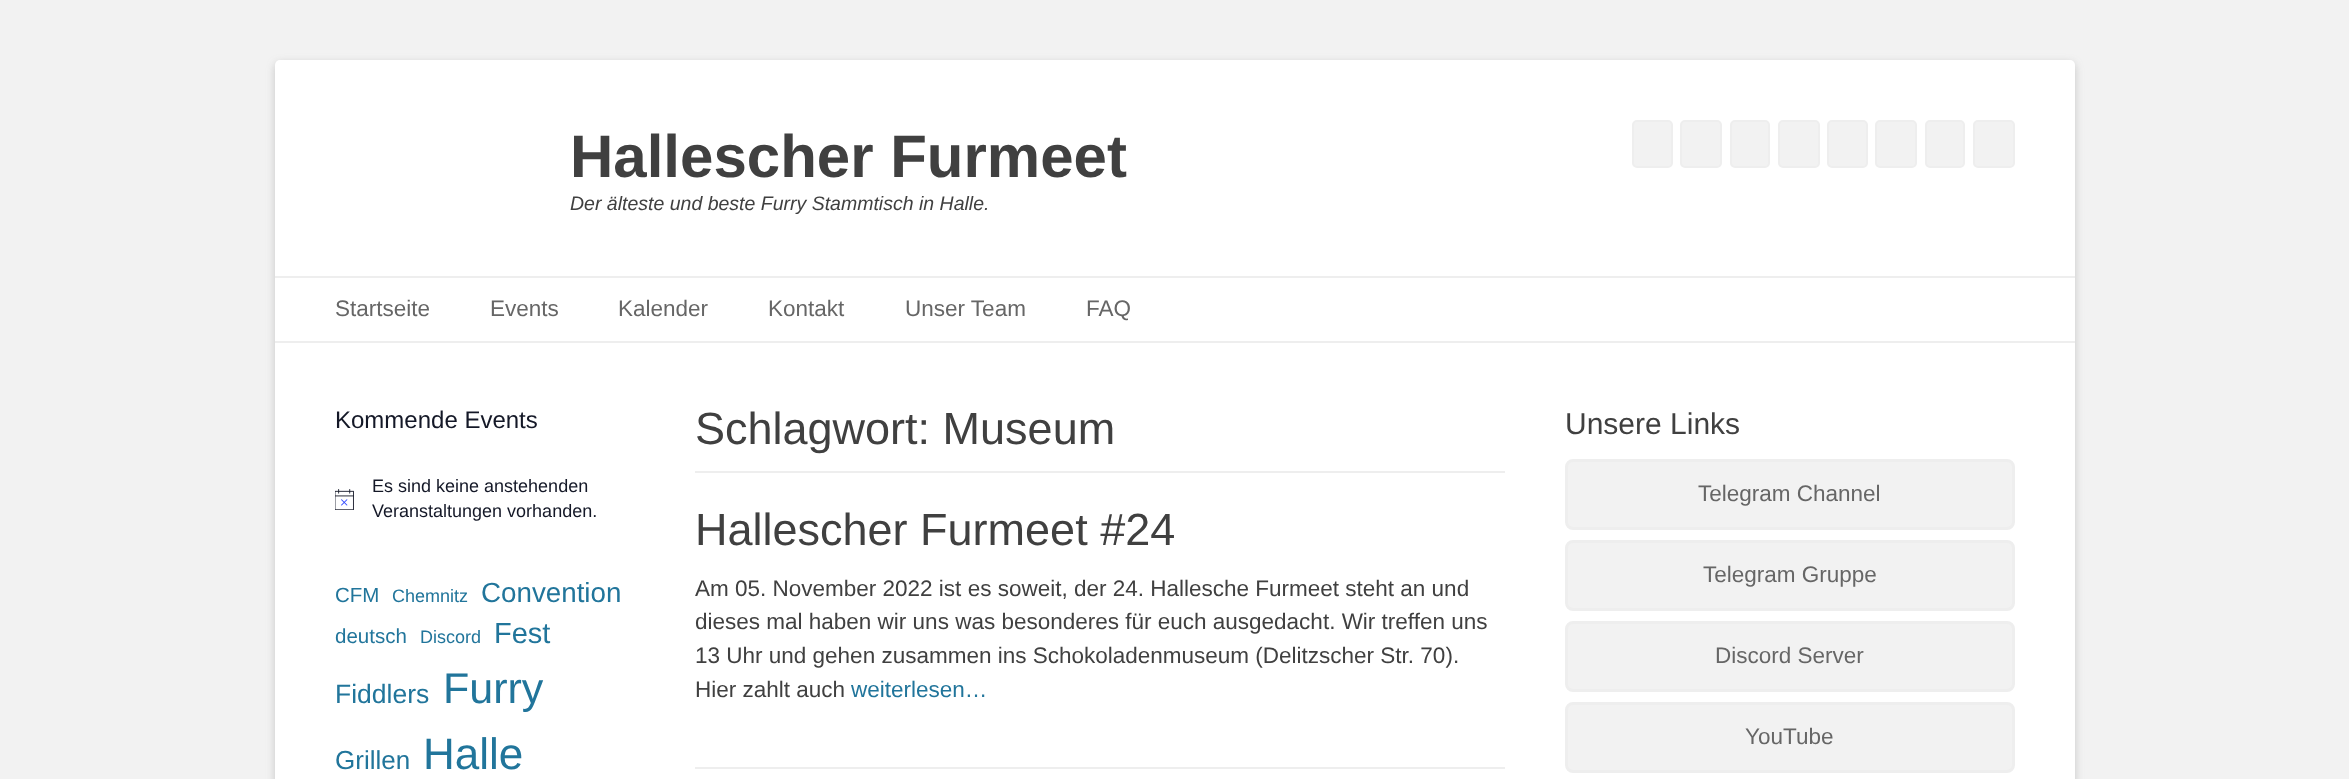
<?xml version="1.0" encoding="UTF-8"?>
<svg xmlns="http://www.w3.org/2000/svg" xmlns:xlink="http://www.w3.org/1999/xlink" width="2349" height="779">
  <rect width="100%" height="100%" fill="#f2f2f2" />
  <rect x="275" y="63" width="1800" height="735" rx="5" fill="#646464" fill-opacity="0.3" filter="blur(4.5px)" />
  <rect x="275" y="60" width="1800" height="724" rx="5" fill="#ffffff" />
  <rect x="1633" y="121" width="39" height="46" rx="4" fill="#f2f2f2" stroke="#eeeeee" stroke-width="2" />
  <rect x="1681" y="121" width="40" height="46" rx="4" fill="#f2f2f2" stroke="#eeeeee" stroke-width="2" />
  <rect x="1731" y="121" width="38" height="46" rx="4" fill="#f2f2f2" stroke="#eeeeee" stroke-width="2" />
  <rect x="1779" y="121" width="40" height="46" rx="4" fill="#f2f2f2" stroke="#eeeeee" stroke-width="2" />
  <rect x="1828" y="121" width="39" height="46" rx="4" fill="#f2f2f2" stroke="#eeeeee" stroke-width="2" />
  <rect x="1876" y="121" width="40" height="46" rx="4" fill="#f2f2f2" stroke="#eeeeee" stroke-width="2" />
  <rect x="1926" y="121" width="38" height="46" rx="4" fill="#f2f2f2" stroke="#eeeeee" stroke-width="2" />
  <rect x="1974" y="121" width="40" height="46" rx="4" fill="#f2f2f2" stroke="#eeeeee" stroke-width="2" />
  <rect x="275" y="276" width="1800" height="2" fill="#eeeeee" />
  <rect x="275" y="341" width="1800" height="2" fill="#eeeeee" />
  <image x="335" y="489" width="19" height="21" xlink:href="image1.png" />
  <rect x="695" y="471" width="810" height="2" fill="#eeeeee" />
  <rect x="695" y="767" width="810" height="2" fill="#eeeeee" />
  <rect x="1566.5" y="460.5" width="447" height="68" rx="6.5" fill="#f2f2f2" stroke="#eeeeee" stroke-width="3" />
  <rect x="1566.5" y="541.5" width="447" height="68" rx="6.5" fill="#f2f2f2" stroke="#eeeeee" stroke-width="3" />
  <rect x="1566.5" y="622.5" width="447" height="68" rx="6.5" fill="#f2f2f2" stroke="#eeeeee" stroke-width="3" />
  <rect x="1566.5" y="703.5" width="447" height="68" rx="6.5" fill="#f2f2f2" stroke="#eeeeee" stroke-width="3" />
  <text x="570" y="177" style="font-family: Liberation Sans; font-size: 60px; font-weight: bold; fill: #404040">Hallescher Furmeet</text>
  <text x="570" y="210" style="font-family: Liberation Sans; font-size: 19.5px; font-style: italic; fill: #404040">Der älteste und beste Furry Stammtisch in Halle.</text>
  <text x="335" y="316" style="font-family: Liberation Sans; font-size: 22.5px; fill: #666666">Startseite</text>
  <text x="490" y="316" style="font-family: Liberation Sans; font-size: 22.5px; fill: #666666">Events</text>
  <text x="618" y="316" style="font-family: Liberation Sans; font-size: 22.5px; fill: #666666">Kalender</text>
  <text x="768" y="316" style="font-family: Liberation Sans; font-size: 22.5px; fill: #666666">Kontakt</text>
  <text x="905" y="316" style="font-family: Liberation Sans; font-size: 22.5px; fill: #666666">Unser Team</text>
  <text x="1086" y="316" style="font-family: Liberation Sans; font-size: 22.5px; fill: #666666">FAQ</text>
  <text x="335" y="428" style="font-family: Liberation Sans; font-size: 24px; fill: #141827">Kommende Events</text>
  <text x="372" y="492" style="font-family: Liberation Sans; font-size: 18px; fill: #141827">Es sind keine anstehenden</text>
  <text x="372" y="517" style="font-family: Liberation Sans; font-size: 18px; fill: #141827">Veranstaltungen vorhanden.</text>
  <text x="335" y="602" style="font-family: Liberation Sans; font-size: 20.5px; fill: #21759b">CFM</text>
  <text x="392" y="602" style="font-family: Liberation Sans; font-size: 18px; fill: #21759b">Chemnitz</text>
  <text x="481" y="602" style="font-family: Liberation Sans; font-size: 27.75px; fill: #21759b">Convention</text>
  <text x="335" y="643" style="font-family: Liberation Sans; font-size: 20.5px; fill: #21759b">deutsch</text>
  <text x="420" y="643" style="font-family: Liberation Sans; font-size: 18px; fill: #21759b">Discord</text>
  <text x="494" y="643" style="font-family: Liberation Sans; font-size: 29px; fill: #21759b">Fest</text>
  <text x="335" y="703" style="font-family: Liberation Sans; font-size: 26.5px; fill: #21759b">Fiddlers</text>
  <text x="443" y="703" style="font-family: Liberation Sans; font-size: 43px; fill: #21759b">Furry</text>
  <text x="335" y="769" style="font-family: Liberation Sans; font-size: 26px; fill: #21759b">Grillen</text>
  <text x="423" y="769" style="font-family: Liberation Sans; font-size: 44px; fill: #21759b">Halle</text>
  <text x="695" y="444" style="font-family: Liberation Sans; font-size: 45px; fill: #404040">Schlagwort: Museum</text>
  <text x="695" y="545" style="font-family: Liberation Sans; font-size: 45px; fill: #404040">Hallescher Furmeet #24</text>
  <text x="695" y="596" style="font-family: Liberation Sans; font-size: 22.5px; fill: #404040">Am 05. November 2022 ist es soweit, der 24. Hallesche Furmeet steht an und</text>
  <text x="695" y="629" style="font-family: Liberation Sans; font-size: 22.5px; fill: #404040">dieses mal haben wir uns was besonderes für euch ausgedacht. Wir treffen uns</text>
  <text x="695" y="663" style="font-family: Liberation Sans; font-size: 22.5px; fill: #404040">13 Uhr und gehen zusammen ins Schokoladenmuseum (Delitzscher Str. 70).</text>
  <text x="695" y="697" style="font-family: Liberation Sans; font-size: 22.5px; fill: #404040">Hier zahlt auch</text>
  <text x="851" y="697" style="font-family: Liberation Sans; font-size: 22.5px; fill: #21759b">weiterlesen…</text>
  <text x="1565" y="434" style="font-family: Liberation Sans; font-size: 30px; fill: #404040">Unsere Links</text>
  <text x="1698" y="501" style="font-family: Liberation Sans; font-size: 22.5px; fill: #666666">Telegram Channel</text>
  <text x="1703" y="582" style="font-family: Liberation Sans; font-size: 22.5px; fill: #666666">Telegram Gruppe</text>
  <text x="1715" y="663" style="font-family: Liberation Sans; font-size: 22.5px; fill: #666666">Discord Server</text>
  <text x="1745" y="744" style="font-family: Liberation Sans; font-size: 22.5px; fill: #666666">YouTube</text>
</svg>
